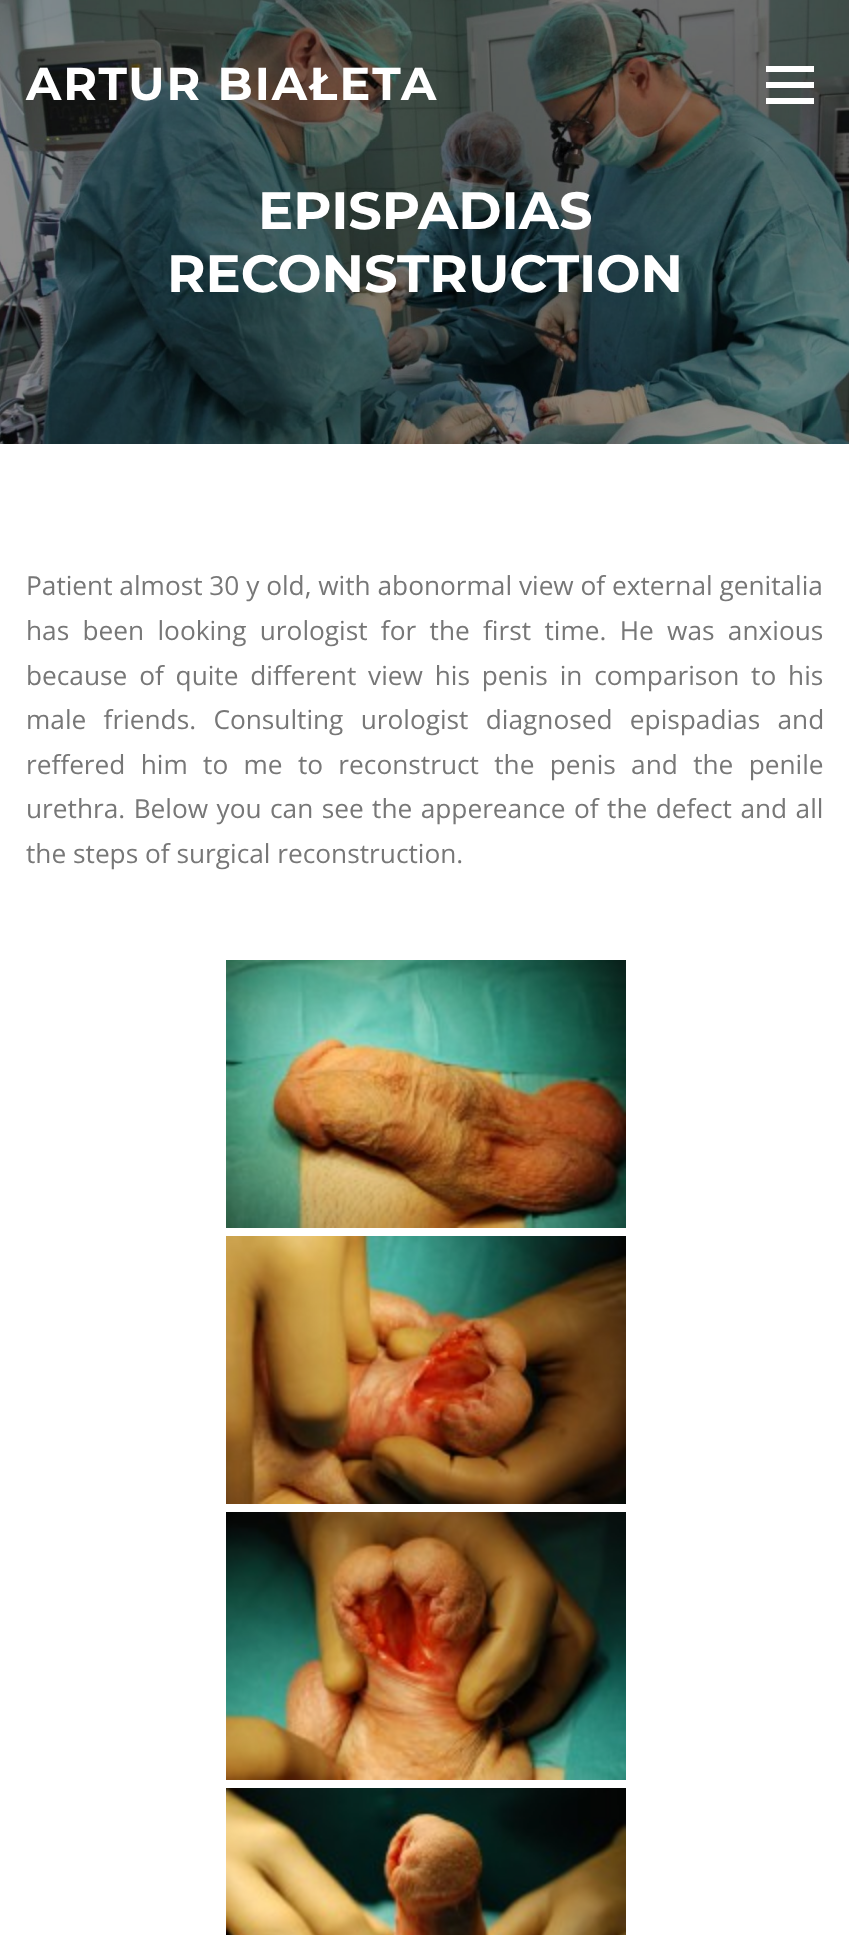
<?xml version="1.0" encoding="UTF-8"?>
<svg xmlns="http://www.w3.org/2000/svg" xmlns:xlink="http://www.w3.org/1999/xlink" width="849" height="1935">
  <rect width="100%" height="100%" fill="#ffffff" />
  <image x="0" y="0" width="849" height="444" xlink:href="image1.png" />
  <rect x="766" y="82" width="48" height="6" fill="#ffffff" />
  <rect x="766" y="66" width="48" height="6" fill="#ffffff" />
  <rect x="766" y="98" width="48" height="6" fill="#ffffff" />
  <image x="226" y="960" width="400" height="268" xlink:href="image2.png" />
  <image x="226" y="1236" width="400" height="268" xlink:href="image3.png" />
  <image x="226" y="1512" width="400" height="268" xlink:href="image4.png" />
  <image x="226" y="1788" width="400" height="147" xlink:href="image5.png" />
  <text x="26" y="100" style="font-family: Montserrat; font-size: 46px; font-weight: bold; letter-spacing: 2px; fill: #ffffff">ARTUR BIAŁETA</text>
  <text x="258" y="229" style="font-family: Montserrat; font-size: 52.5px; font-weight: bold; fill: #ffffff">EPISPADIAS</text>
  <text x="167" y="292" style="font-family: Montserrat; font-size: 52.5px; font-weight: bold; fill: #ffffff">RECONSTRUCTION</text>
  <text x="26" y="595" style="font-family: Open Sans; font-size: 26.25px; fill: #777777">Patient almost 30 y old, with abonormal view of external genitalia</text>
  <text x="26" y="640" word-spacing="6.5" style="font-family: Open Sans; font-size: 26.25px; fill: #777777">has been looking urologist for the first time. He was anxious</text>
  <text x="26" y="685" word-spacing="5" style="font-family: Open Sans; font-size: 26.25px; fill: #777777">because of quite different view his penis in comparison to his</text>
  <text x="26" y="729" word-spacing="10.5" style="font-family: Open Sans; font-size: 26.25px; fill: #777777">male friends. Consulting urologist diagnosed epispadias and</text>
  <text x="26" y="774" word-spacing="8.5" style="font-family: Open Sans; font-size: 26.25px; fill: #777777">reffered him to me to reconstruct the penis and the penile</text>
  <text x="26" y="818" word-spacing="1.6" style="font-family: Open Sans; font-size: 26.25px; fill: #777777">urethra. Below you can see the appereance of the defect and all</text>
  <text x="26" y="863" style="font-family: Open Sans; font-size: 26.25px; fill: #777777">the steps of surgical reconstruction.</text>
</svg>
